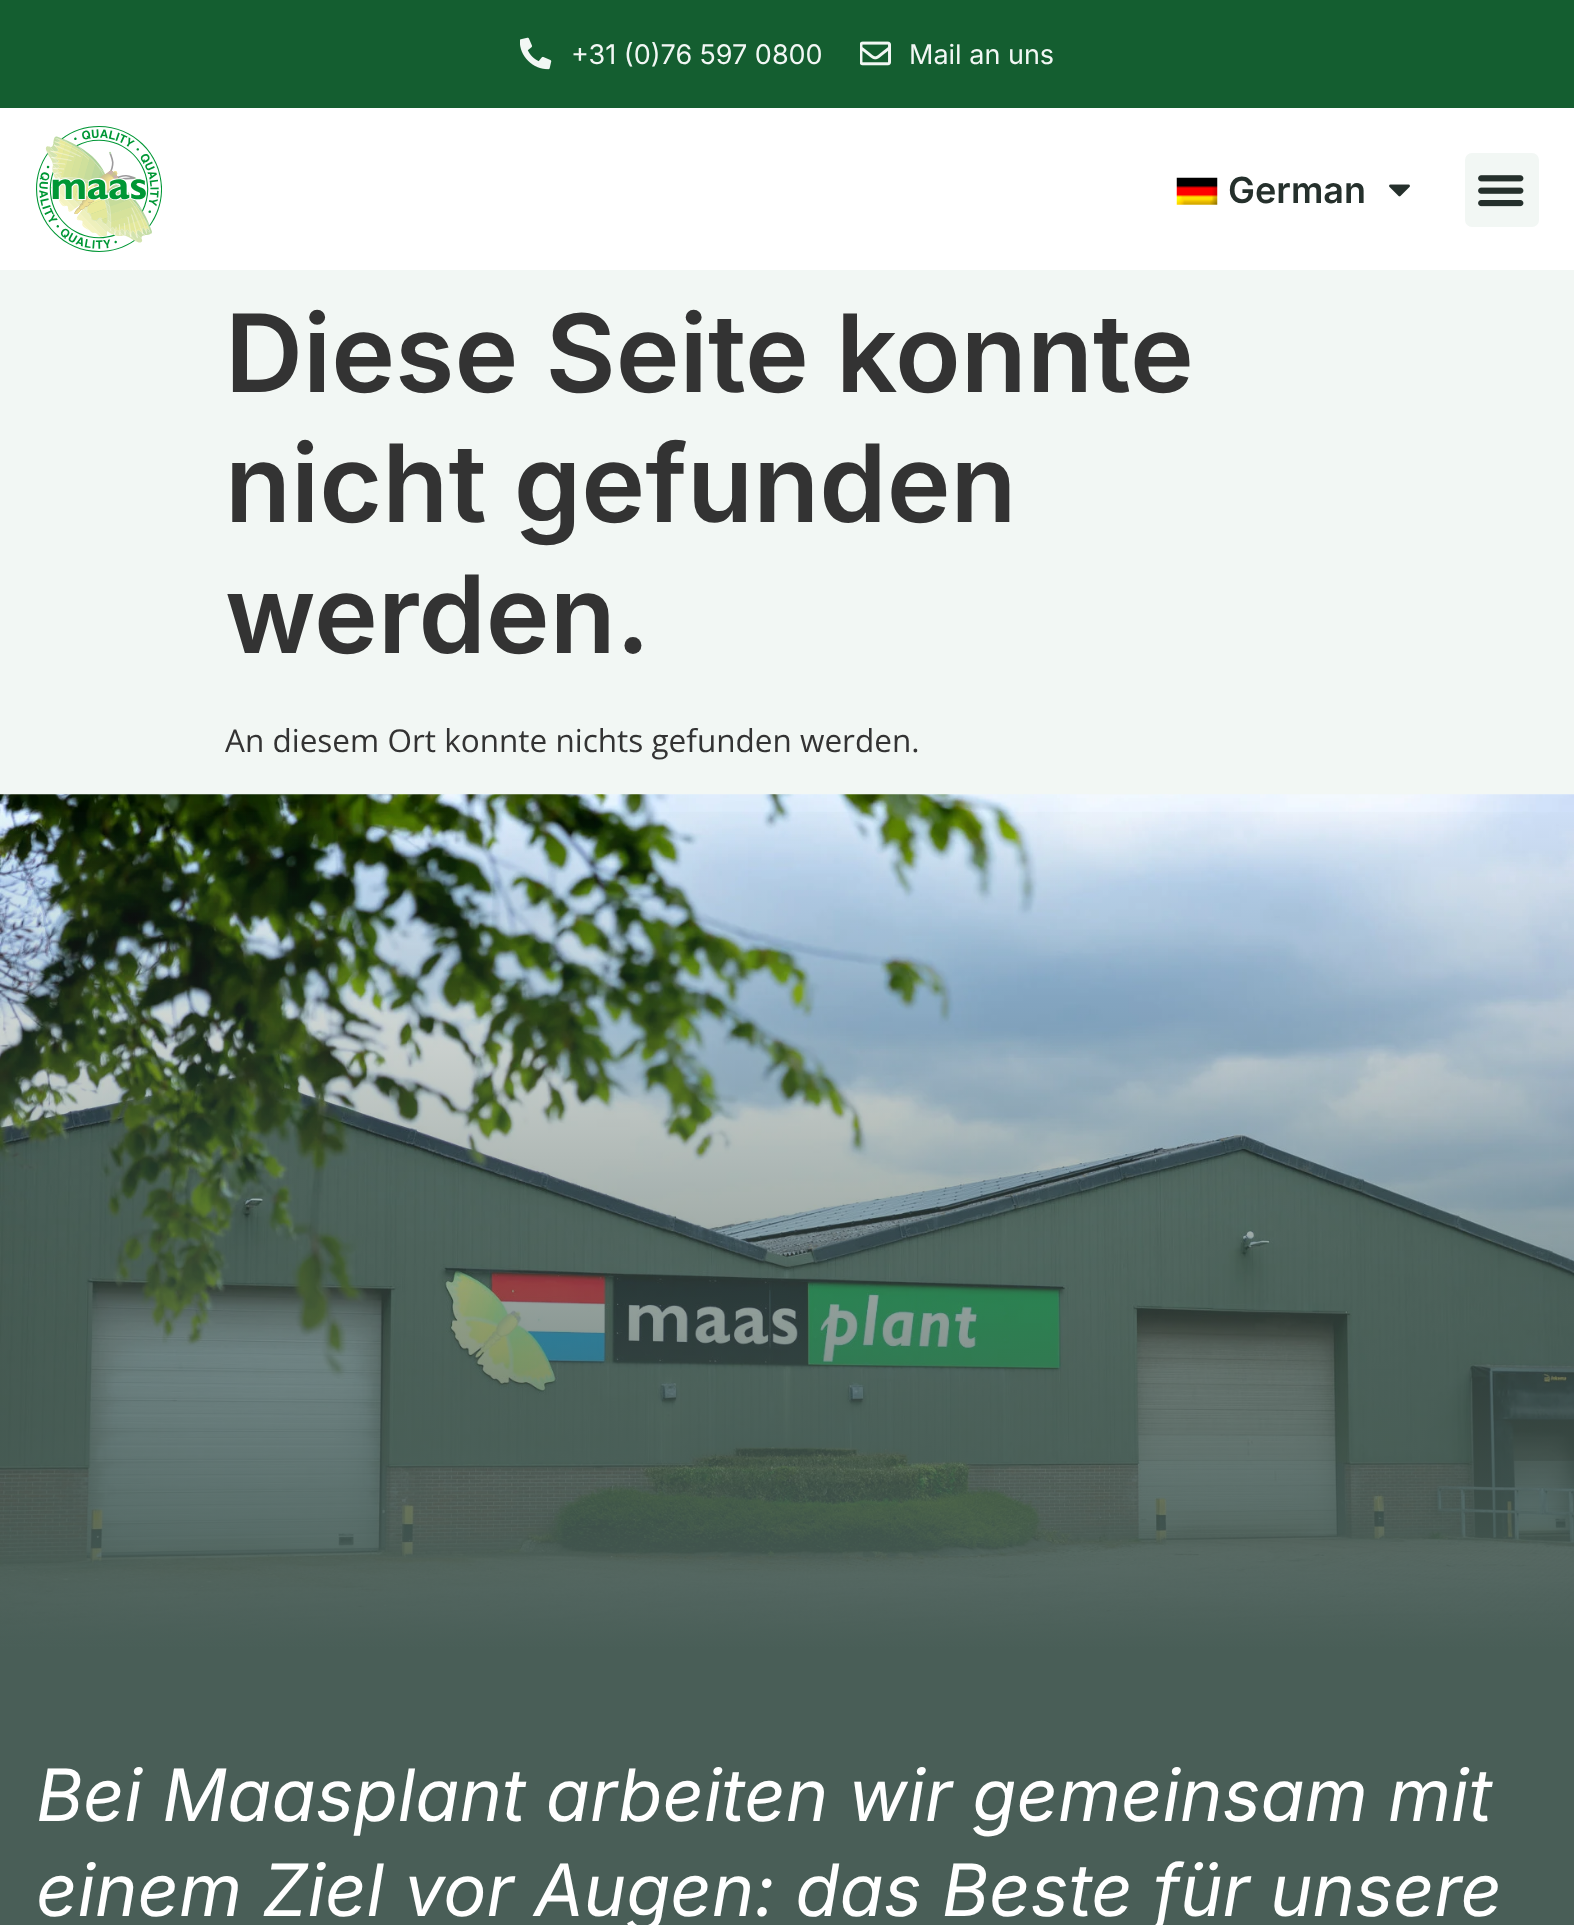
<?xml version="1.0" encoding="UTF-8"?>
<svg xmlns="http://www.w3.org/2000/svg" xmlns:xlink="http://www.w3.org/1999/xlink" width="1574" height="1925">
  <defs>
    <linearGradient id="g1" gradientUnits="userSpaceOnUse" x1="788" y1="794" x2="788" y2="1694"><stop offset="0" stop-color="#495e57" stop-opacity="0" /><stop offset="0.95" stop-color="#495e57" /></linearGradient>
  </defs>
  <rect width="100%" height="100%" fill="#f2f7f4" />
  <rect width="1574" height="108" fill="#145e30" />
  <image x="520" y="37" width="32" height="33" xlink:href="image1.png" />
  <image x="860" y="41" width="31" height="25" xlink:href="image2.png" />
  <rect y="108" width="1574" height="162" fill="#ffffff" />
  <image x="36" y="126" width="126" height="126" xlink:href="image3.png" />
  <image x="1176" y="177" width="42" height="28" xlink:href="image4.png" />
  <image x="1389" y="184" width="21" height="13" xlink:href="image5.png" />
  <rect x="1465" y="153" width="74" height="74" rx="7" fill="#f2f7f4" />
  <image x="1478" y="175" width="46" height="32" xlink:href="image6.png" />
  <image x="0" y="794" width="1574" height="850" xlink:href="image7.png" />
  <rect y="812" width="1574" height="882" fill="url(#g1)" />
  <rect y="1694" width="1574" height="231" fill="#495e57" />
  <text x="571" y="64" style="font-family: Inter; font-size: 27px; fill: #f2f7f4">+31 (0)76 597 0800</text>
  <text x="909" y="64" style="font-family: Inter; font-size: 27px; fill: #f2f7f4">Mail an uns</text>
  <text x="1228" y="203" style="font-family: Inter; font-size: 36px; font-weight: 600; fill: #25302c">German</text>
  <text x="225" y="392" style="font-family: Inter; font-size: 108px; font-weight: 600; fill: #333333">Diese Seite konnte</text>
  <text x="225" y="522" style="font-family: Inter; font-size: 108px; font-weight: 600; fill: #333333">nicht gefunden</text>
  <text x="225" y="653" style="font-family: Inter; font-size: 108px; font-weight: 600; fill: #333333">werden.</text>
  <text x="225" y="752" style="font-family: Open Sans; font-size: 31.5px; fill: #333333">An diesem Ort konnte nichts gefunden werden.</text>
  <text x="36" y="1821" style="font-family: Inter; font-size: 72px; font-style: italic; fill: #ffffff">Bei Maasplant arbeiten wir gemeinsam mit</text>
  <text x="36" y="1916" style="font-family: Inter; font-size: 72px; font-style: italic; fill: #ffffff">einem Ziel vor Augen: das Beste für unsere</text>
</svg>
